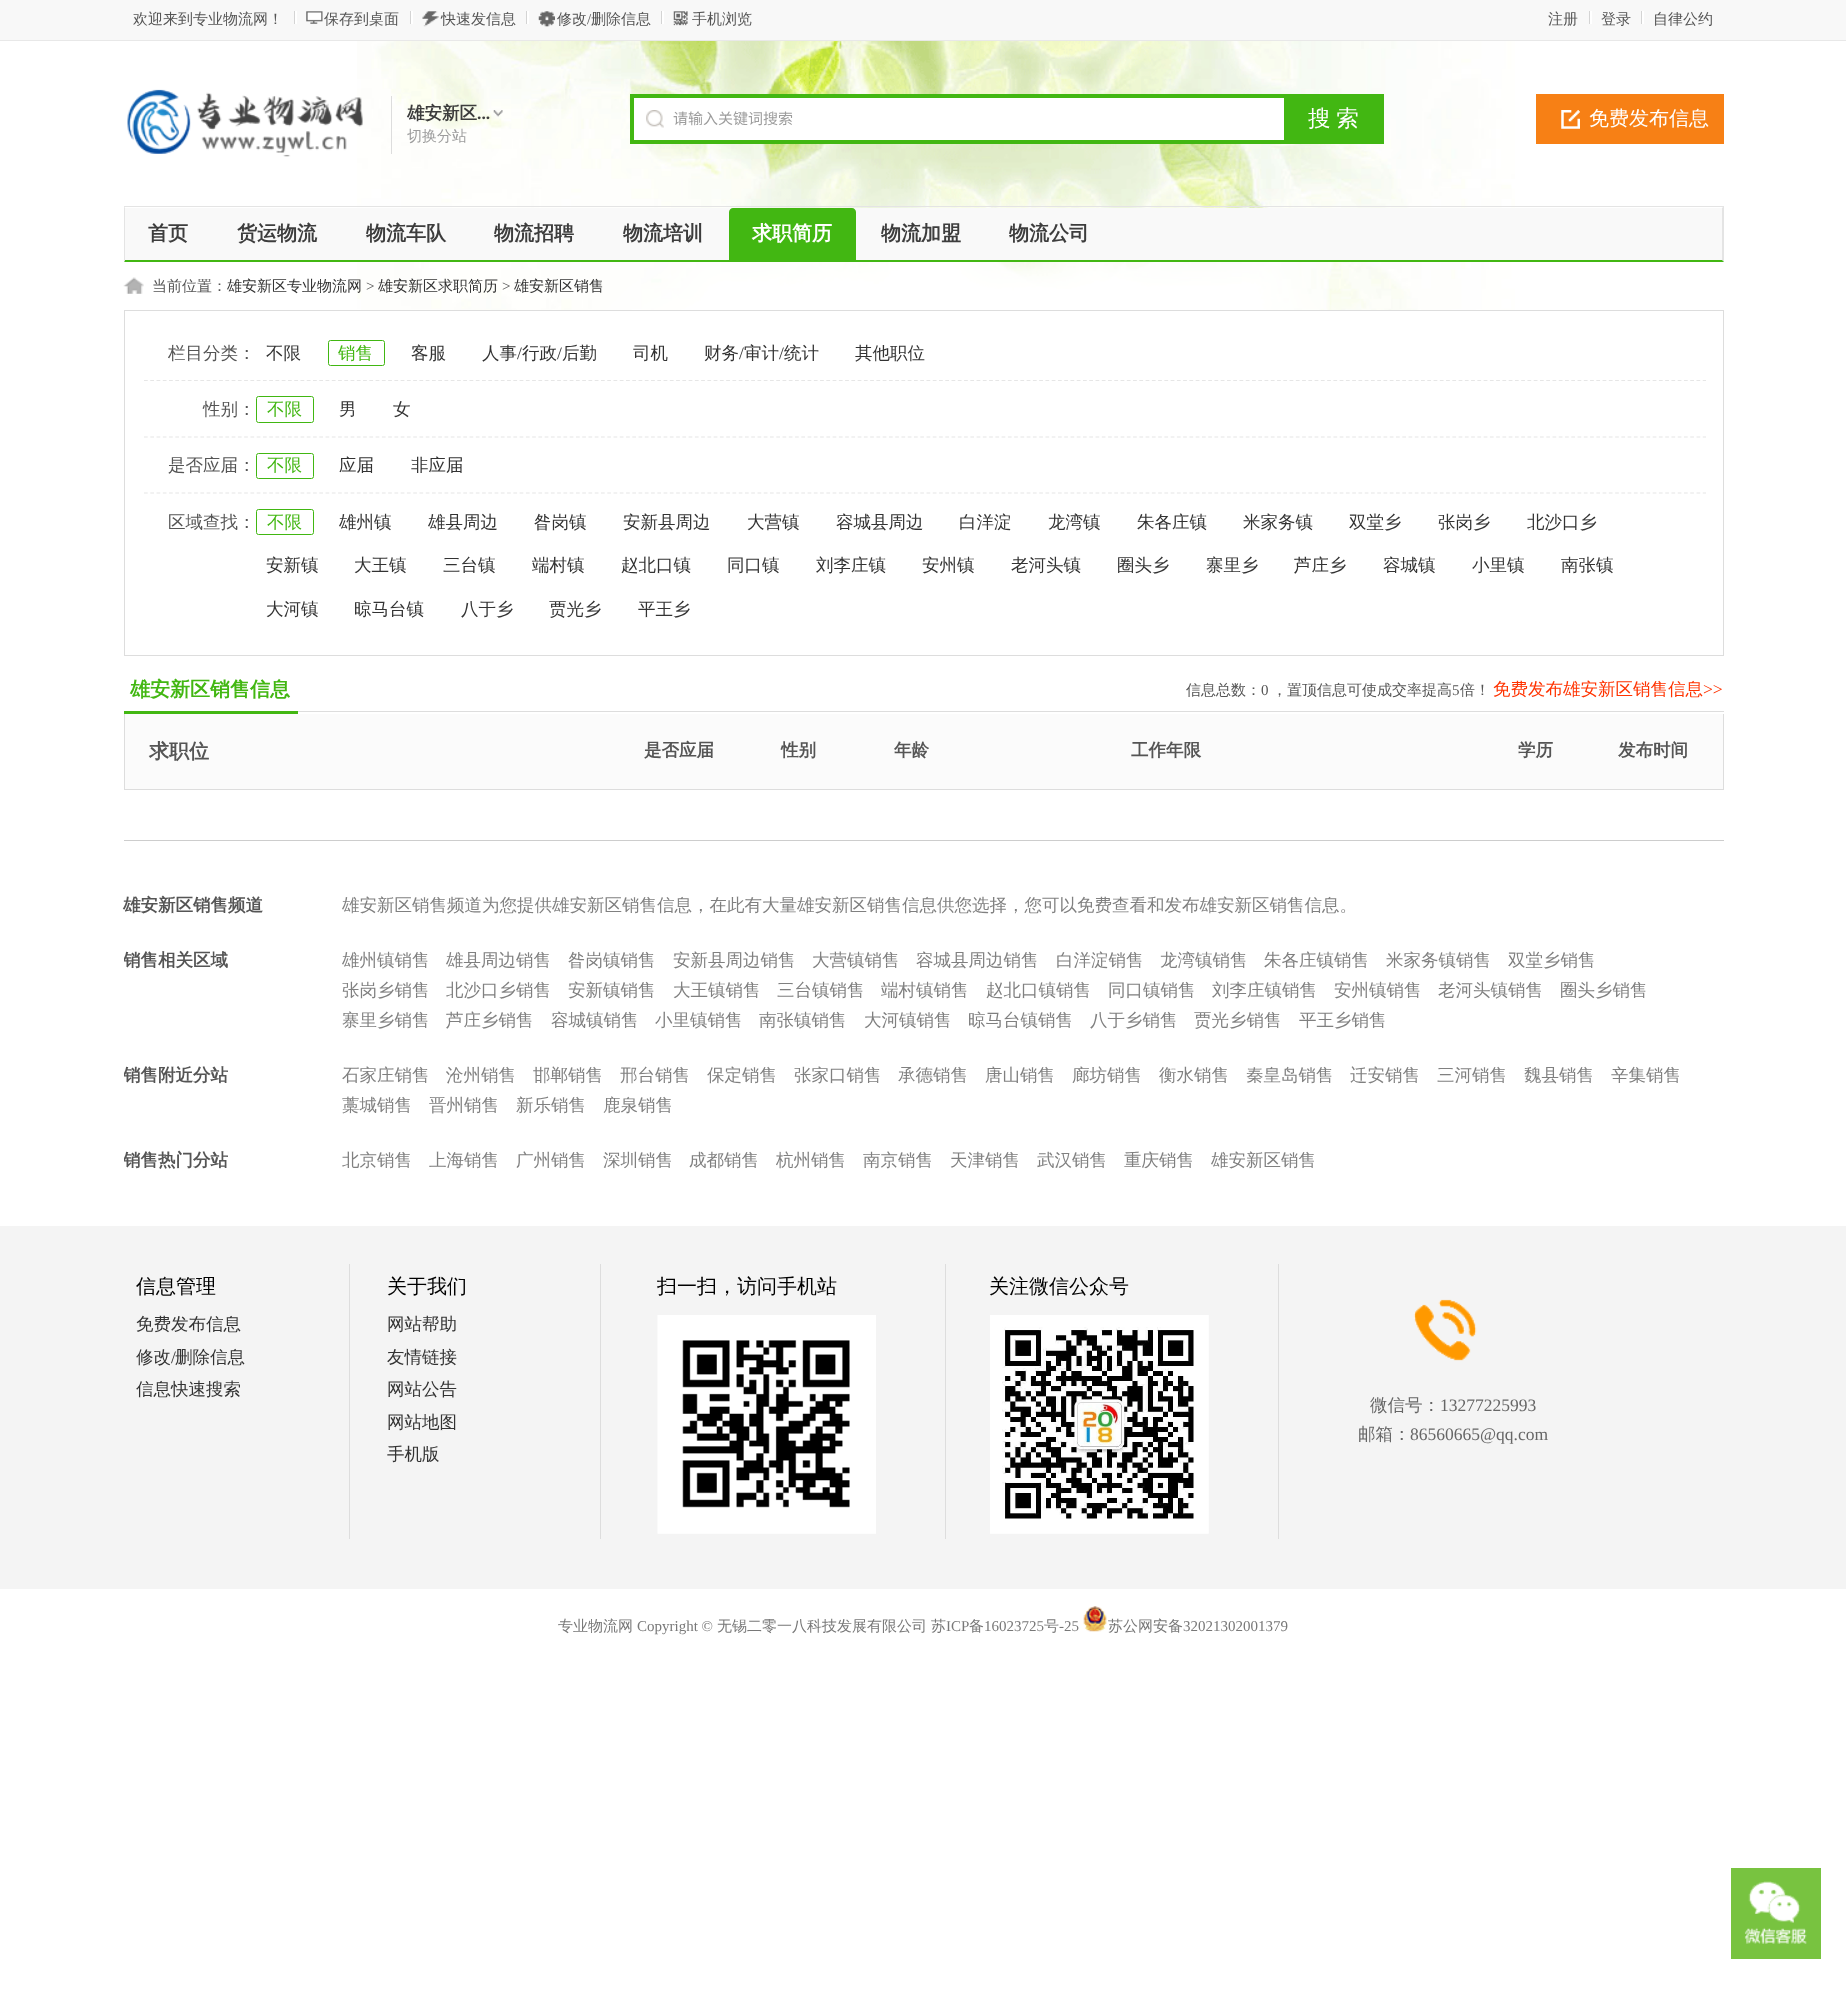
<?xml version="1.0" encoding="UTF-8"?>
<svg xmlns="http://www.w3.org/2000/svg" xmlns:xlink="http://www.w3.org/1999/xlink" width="1846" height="2009">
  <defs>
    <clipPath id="clip1"><rect x="124" y="934" width="1600" height="115" /></clipPath>
    <clipPath id="clip2"><rect x="124" y="1049" width="1600" height="85" /></clipPath>
    <clipPath id="clip3"><rect x="124" y="1134" width="1600" height="55" /></clipPath>
  </defs>
  <rect width="100%" height="100%" fill="#ffffff" />
  <image x="357" y="41" width="1158" height="269" xlink:href="image1.png" />
  <rect width="1846" height="40" fill="#f8f8f8" />
  <rect y="40" width="1846" height="1" fill="#e8e8e8" />
  <rect x="295" y="11" width="2" height="13" fill="#ffffff" />
  <rect x="294" y="11" width="1" height="13" fill="#d4d4d4" />
  <image x="306" y="11" width="17" height="13" xlink:href="image2.png" />
  <rect x="411" y="11" width="2" height="13" fill="#ffffff" />
  <rect x="410" y="11" width="1" height="13" fill="#d4d4d4" />
  <image x="422" y="11" width="17" height="16" xlink:href="image3.png" />
  <rect x="527" y="11" width="2" height="13" fill="#ffffff" />
  <rect x="526" y="11" width="1" height="13" fill="#d4d4d4" />
  <image x="538" y="11" width="17" height="16" xlink:href="image4.png" />
  <rect x="662" y="11" width="2" height="13" fill="#ffffff" />
  <rect x="661" y="11" width="1" height="13" fill="#d4d4d4" />
  <image x="673" y="11" width="15" height="15" xlink:href="image5.png" />
  <rect x="1590" y="11" width="2" height="13" fill="#ffffff" />
  <rect x="1589" y="11" width="1" height="13" fill="#d4d4d4" />
  <rect x="1642" y="11" width="2" height="13" fill="#ffffff" />
  <rect x="1641" y="11" width="1" height="13" fill="#d4d4d4" />
  <image x="127" y="89" width="236" height="68" xlink:href="image6.png" />
  <rect x="391" y="96" width="1" height="58" fill="#dddddd" />
  <image x="493" y="110" width="10" height="7" xlink:href="image7.png" />
  <rect x="634" y="98" width="650" height="42" fill="#ffffff" />
  <image x="646" y="110" width="18" height="18" xlink:href="image8.png" />
  <rect x="630" y="94" width="654" height="4" fill="#42b712" />
  <rect x="630" y="140" width="654" height="4" fill="#42b712" />
  <rect x="630" y="94" width="4" height="50" fill="#42b712" />
  <rect x="1284" y="94" width="100" height="50" fill="#42b712" />
  <rect x="1536" y="94" width="188" height="50" fill="#f78015" />
  <image x="1561" y="110" width="19" height="19" xlink:href="image9.png" />
  <rect x="125" y="208" width="1597" height="52" fill="#f9f9f9" />
  <rect x="124" y="206" width="1600" height="1" fill="#e4e4e4" />
  <path d="M 1724 206 v 56 l -2 -2 v -52 z" fill="#e4e4e4" />
  <path d="M 1724 262 h -1600 l 1 -2 h 1597 z" fill="#42b712" />
  <path d="M 124 262 v -56 l 1 2 v 52 z" fill="#e4e4e4" />
  <path d="M 733 208 h 119 c 2 0 4 2 4 4 v 48 h -127 v -48 c 0 -2 2 -4 4 -4 z" fill="#42b712" />
  <image x="123" y="277" width="21" height="17" xlink:href="image10.png" />
  <rect x="124.5" y="310.5" width="1599" height="345" fill="none" stroke="#dddddd" />
  <path d="M 144 380.5 h 1562" fill="none" stroke="#e6e6e6" stroke-width="1.2" stroke-dasharray="3.75 2.51" />
  <rect x="328.5" y="340.5" width="56" height="25" rx="2" fill="none" stroke="#41b712" />
  <path d="M 144 437 h 1562" fill="none" stroke="#e6e6e6" stroke-width="1.2" stroke-dasharray="3.75 2.51" />
  <rect x="256.5" y="396.5" width="57" height="26" rx="2" fill="none" stroke="#41b712" />
  <path d="M 144 493 h 1562" fill="none" stroke="#e6e6e6" stroke-width="1.2" stroke-dasharray="3.75 2.51" />
  <rect x="256.5" y="453.5" width="57" height="25" rx="2" fill="none" stroke="#41b712" />
  <rect x="256.5" y="509.5" width="57" height="25" rx="2" fill="none" stroke="#41b712" />
  <rect x="298" y="711" width="1426" height="1" fill="#dddddd" />
  <rect x="124" y="711" width="174" height="3" fill="#42b712" />
  <rect x="125" y="714" width="1598" height="75" fill="#fbfbfb" />
  <rect x="1723" y="714" width="1" height="76" fill="#dddddd" />
  <rect x="124" y="789" width="1600" height="1" fill="#dddddd" />
  <rect x="124" y="714" width="1" height="76" fill="#dddddd" />
  <rect x="124" y="840" width="1600" height="1" fill="#cdcdcd" />
  <rect y="1226" width="1846" height="363" fill="#f4f4f4" />
  <rect x="349" y="1264" width="1" height="275" fill="#dddddd" />
  <rect x="600" y="1264" width="1" height="275" fill="#dddddd" />
  <rect x="945" y="1264" width="1" height="275" fill="#dddddd" />
  <image x="657" y="1315" width="219" height="219" xlink:href="image11.png" />
  <rect x="1278" y="1264" width="1" height="275" fill="#dddddd" />
  <image x="990" y="1315" width="219" height="219" xlink:href="image12.png" />
  <image x="1413" y="1299" width="64" height="62" xlink:href="image13.png" />
  <image x="1083" y="1606" width="24" height="26" xlink:href="image14.png" />
  <rect x="1731" y="1868" width="90" height="91" fill="#78c340" />
  <image x="1744" y="1881" width="63" height="63" xlink:href="image15.png" />
  <text x="133" y="24" style="font-family: WenQuanYi Zen Hei; font-size: 15px; font-weight: 500; fill: #555555">欢迎来到专业物流网！</text>
  <text x="324" y="24" style="font-family: WenQuanYi Zen Hei; font-size: 15px; font-weight: 500; fill: #555555">保存到桌面</text>
  <text x="441" y="24" style="font-family: WenQuanYi Zen Hei; font-size: 15px; font-weight: 500; fill: #555555">快速发信息</text>
  <text x="557" y="24" style="font-family: WenQuanYi Zen Hei; font-size: 15px; font-weight: 500; fill: #555555">修改</text>
  <text x="587" y="24" style="font-family: Liberation Serif; font-size: 15px; fill: #555555">/</text>
  <text x="591" y="24" style="font-family: WenQuanYi Zen Hei; font-size: 15px; font-weight: 500; fill: #555555">删除信息</text>
  <text x="692" y="24" style="font-family: WenQuanYi Zen Hei; font-size: 15px; font-weight: 500; fill: #555555">手机浏览</text>
  <text x="1548" y="24" style="font-family: WenQuanYi Zen Hei; font-size: 15px; font-weight: 500; fill: #555555">注册</text>
  <text x="1601" y="24" style="font-family: WenQuanYi Zen Hei; font-size: 15px; font-weight: 500; fill: #555555">登录</text>
  <text x="1653" y="24" style="font-family: WenQuanYi Zen Hei; font-size: 15px; font-weight: 500; fill: #555555">自律公约</text>
  <text x="407" y="119" style="font-family: WenQuanYi Zen Hei; font-size: 17.5px; font-weight: bold; fill: #3d3d3d">雄安新区</text>
  <text x="477" y="119" style="font-family: Liberation Serif; font-size: 17.5px; font-weight: bold; fill: #3d3d3d">...</text>
  <text x="407" y="141" style="font-family: WenQuanYi Zen Hei; font-size: 15px; font-weight: 500; fill: #9d9d9d">切换分站</text>
  <text x="673" y="124" style="font-family: Noto Sans CJK SC; font-size: 15px; fill: #9d9d9d">请输入关键词搜索</text>
  <text x="1308" y="126" word-spacing="-1" style="font-family: WenQuanYi Zen Hei; font-size: 22.5px; font-weight: 500; fill: #ffffff">搜 索</text>
  <text x="1589" y="125" style="font-family: WenQuanYi Zen Hei; font-size: 20px; font-weight: 500; fill: #ffffff">免费发布信息</text>
  <text x="148" y="240" style="font-family: WenQuanYi Zen Hei; font-size: 20px; font-weight: bold; fill: #3d3d3d">首页</text>
  <text x="237" y="240" style="font-family: WenQuanYi Zen Hei; font-size: 20px; font-weight: bold; fill: #3d3d3d">货运物流</text>
  <text x="366" y="240" style="font-family: WenQuanYi Zen Hei; font-size: 20px; font-weight: bold; fill: #3d3d3d">物流车队</text>
  <text x="494" y="240" style="font-family: WenQuanYi Zen Hei; font-size: 20px; font-weight: bold; fill: #3d3d3d">物流招聘</text>
  <text x="623" y="240" style="font-family: WenQuanYi Zen Hei; font-size: 20px; font-weight: bold; fill: #3d3d3d">物流培训</text>
  <text x="752" y="240" style="font-family: WenQuanYi Zen Hei; font-size: 20px; font-weight: bold; fill: #ffffff">求职简历</text>
  <text x="881" y="240" style="font-family: WenQuanYi Zen Hei; font-size: 20px; font-weight: bold; fill: #3d3d3d">物流加盟</text>
  <text x="1009" y="240" style="font-family: WenQuanYi Zen Hei; font-size: 20px; font-weight: bold; fill: #3d3d3d">物流公司</text>
  <text x="152" y="291" style="font-family: WenQuanYi Zen Hei; font-size: 15px; font-weight: 500; fill: #555555">当前位置：</text>
  <text x="227" y="291" style="font-family: WenQuanYi Zen Hei; font-size: 15px; font-weight: 500; fill: #333333">雄安新区专业物流网</text>
  <text x="366" y="291" style="font-family: Liberation Serif; font-size: 15px; fill: #555555">&gt;</text>
  <text x="378" y="291" style="font-family: WenQuanYi Zen Hei; font-size: 15px; font-weight: 500; fill: #333333">雄安新区求职简历</text>
  <text x="502" y="291" style="font-family: Liberation Serif; font-size: 15px; fill: #555555">&gt;</text>
  <text x="514" y="291" style="font-family: WenQuanYi Zen Hei; font-size: 15px; font-weight: 500; fill: #333333">雄安新区销售</text>
  <text x="168" y="359" style="font-family: WenQuanYi Zen Hei; font-size: 17.5px; font-weight: 500; fill: #555555">栏目分类：</text>
  <text x="266" y="359" style="font-family: WenQuanYi Zen Hei; font-size: 17.5px; font-weight: 500; fill: #333333">不限</text>
  <text x="338" y="359" style="font-family: WenQuanYi Zen Hei; font-size: 17.5px; font-weight: 500; fill: #42b712">销售</text>
  <text x="411" y="359" style="font-family: WenQuanYi Zen Hei; font-size: 17.5px; font-weight: 500; fill: #333333">客服</text>
  <text x="482" y="359" style="font-family: WenQuanYi Zen Hei; font-size: 17.5px; font-weight: 500; fill: #333333">人事</text>
  <text x="517" y="359" style="font-family: Liberation Serif; font-size: 17.5px; fill: #333333">/</text>
  <text x="522" y="359" style="font-family: WenQuanYi Zen Hei; font-size: 17.5px; font-weight: 500; fill: #333333">行政</text>
  <text x="557" y="359" style="font-family: Liberation Serif; font-size: 17.5px; fill: #333333">/</text>
  <text x="562" y="359" style="font-family: WenQuanYi Zen Hei; font-size: 17.5px; font-weight: 500; fill: #333333">后勤</text>
  <text x="633" y="359" style="font-family: WenQuanYi Zen Hei; font-size: 17.5px; font-weight: 500; fill: #333333">司机</text>
  <text x="704" y="359" style="font-family: WenQuanYi Zen Hei; font-size: 17.5px; font-weight: 500; fill: #333333">财务</text>
  <text x="739" y="359" style="font-family: Liberation Serif; font-size: 17.5px; fill: #333333">/</text>
  <text x="744" y="359" style="font-family: WenQuanYi Zen Hei; font-size: 17.5px; font-weight: 500; fill: #333333">审计</text>
  <text x="779" y="359" style="font-family: Liberation Serif; font-size: 17.5px; fill: #333333">/</text>
  <text x="784" y="359" style="font-family: WenQuanYi Zen Hei; font-size: 17.5px; font-weight: 500; fill: #333333">统计</text>
  <text x="855" y="359" style="font-family: WenQuanYi Zen Hei; font-size: 17.5px; font-weight: 500; fill: #333333">其他职位</text>
  <text x="203" y="415" style="font-family: WenQuanYi Zen Hei; font-size: 17.5px; font-weight: 500; fill: #555555">性别：</text>
  <text x="267" y="415" style="font-family: WenQuanYi Zen Hei; font-size: 17.5px; font-weight: 500; fill: #42b712">不限</text>
  <text x="339" y="415" style="font-family: WenQuanYi Zen Hei; font-size: 17.5px; font-weight: 500; fill: #333333">男</text>
  <text x="393" y="415" style="font-family: WenQuanYi Zen Hei; font-size: 17.5px; font-weight: 500; fill: #333333">女</text>
  <text x="168" y="471" style="font-family: WenQuanYi Zen Hei; font-size: 17.5px; font-weight: 500; fill: #555555">是否应届：</text>
  <text x="267" y="471" style="font-family: WenQuanYi Zen Hei; font-size: 17.5px; font-weight: 500; fill: #42b712">不限</text>
  <text x="339" y="471" style="font-family: WenQuanYi Zen Hei; font-size: 17.5px; font-weight: 500; fill: #333333">应届</text>
  <text x="411" y="471" style="font-family: WenQuanYi Zen Hei; font-size: 17.5px; font-weight: 500; fill: #333333">非应届</text>
  <text x="168" y="528" style="font-family: WenQuanYi Zen Hei; font-size: 17.5px; font-weight: 500; fill: #555555">区域查找：</text>
  <text x="267" y="528" style="font-family: WenQuanYi Zen Hei; font-size: 17.5px; font-weight: 500; fill: #42b712">不限</text>
  <text x="339" y="528" style="font-family: WenQuanYi Zen Hei; font-size: 17.5px; font-weight: 500; fill: #333333">雄州镇</text>
  <text x="428" y="528" style="font-family: WenQuanYi Zen Hei; font-size: 17.5px; font-weight: 500; fill: #333333">雄县周边</text>
  <text x="534" y="528" style="font-family: WenQuanYi Zen Hei; font-size: 17.5px; font-weight: 500; fill: #333333">昝岗镇</text>
  <text x="623" y="528" style="font-family: WenQuanYi Zen Hei; font-size: 17.5px; font-weight: 500; fill: #333333">安新县周边</text>
  <text x="747" y="528" style="font-family: WenQuanYi Zen Hei; font-size: 17.5px; font-weight: 500; fill: #333333">大营镇</text>
  <text x="836" y="528" style="font-family: WenQuanYi Zen Hei; font-size: 17.5px; font-weight: 500; fill: #333333">容城县周边</text>
  <text x="959" y="528" style="font-family: WenQuanYi Zen Hei; font-size: 17.5px; font-weight: 500; fill: #333333">白洋淀</text>
  <text x="1048" y="528" style="font-family: WenQuanYi Zen Hei; font-size: 17.5px; font-weight: 500; fill: #333333">龙湾镇</text>
  <text x="1137" y="528" style="font-family: WenQuanYi Zen Hei; font-size: 17.5px; font-weight: 500; fill: #333333">朱各庄镇</text>
  <text x="1243" y="528" style="font-family: WenQuanYi Zen Hei; font-size: 17.5px; font-weight: 500; fill: #333333">米家务镇</text>
  <text x="1349" y="528" style="font-family: WenQuanYi Zen Hei; font-size: 17.5px; font-weight: 500; fill: #333333">双堂乡</text>
  <text x="1438" y="528" style="font-family: WenQuanYi Zen Hei; font-size: 17.5px; font-weight: 500; fill: #333333">张岗乡</text>
  <text x="1527" y="528" style="font-family: WenQuanYi Zen Hei; font-size: 17.5px; font-weight: 500; fill: #333333">北沙口乡</text>
  <text x="266" y="571" style="font-family: WenQuanYi Zen Hei; font-size: 17.5px; font-weight: 500; fill: #333333">安新镇</text>
  <text x="354" y="571" style="font-family: WenQuanYi Zen Hei; font-size: 17.5px; font-weight: 500; fill: #333333">大王镇</text>
  <text x="443" y="571" style="font-family: WenQuanYi Zen Hei; font-size: 17.5px; font-weight: 500; fill: #333333">三台镇</text>
  <text x="532" y="571" style="font-family: WenQuanYi Zen Hei; font-size: 17.5px; font-weight: 500; fill: #333333">端村镇</text>
  <text x="621" y="571" style="font-family: WenQuanYi Zen Hei; font-size: 17.5px; font-weight: 500; fill: #333333">赵北口镇</text>
  <text x="727" y="571" style="font-family: WenQuanYi Zen Hei; font-size: 17.5px; font-weight: 500; fill: #333333">同口镇</text>
  <text x="816" y="571" style="font-family: WenQuanYi Zen Hei; font-size: 17.5px; font-weight: 500; fill: #333333">刘李庄镇</text>
  <text x="922" y="571" style="font-family: WenQuanYi Zen Hei; font-size: 17.5px; font-weight: 500; fill: #333333">安州镇</text>
  <text x="1011" y="571" style="font-family: WenQuanYi Zen Hei; font-size: 17.5px; font-weight: 500; fill: #333333">老河头镇</text>
  <text x="1117" y="571" style="font-family: WenQuanYi Zen Hei; font-size: 17.5px; font-weight: 500; fill: #333333">圈头乡</text>
  <text x="1206" y="571" style="font-family: WenQuanYi Zen Hei; font-size: 17.5px; font-weight: 500; fill: #333333">寨里乡</text>
  <text x="1294" y="571" style="font-family: WenQuanYi Zen Hei; font-size: 17.5px; font-weight: 500; fill: #333333">芦庄乡</text>
  <text x="1383" y="571" style="font-family: WenQuanYi Zen Hei; font-size: 17.5px; font-weight: 500; fill: #333333">容城镇</text>
  <text x="1472" y="571" style="font-family: WenQuanYi Zen Hei; font-size: 17.5px; font-weight: 500; fill: #333333">小里镇</text>
  <text x="1561" y="571" style="font-family: WenQuanYi Zen Hei; font-size: 17.5px; font-weight: 500; fill: #333333">南张镇</text>
  <text x="266" y="615" style="font-family: WenQuanYi Zen Hei; font-size: 17.5px; font-weight: 500; fill: #333333">大河镇</text>
  <text x="354" y="615" style="font-family: WenQuanYi Zen Hei; font-size: 17.5px; font-weight: 500; fill: #333333">晾马台镇</text>
  <text x="461" y="615" style="font-family: WenQuanYi Zen Hei; font-size: 17.5px; font-weight: 500; fill: #333333">八于乡</text>
  <text x="549" y="615" style="font-family: WenQuanYi Zen Hei; font-size: 17.5px; font-weight: 500; fill: #333333">贾光乡</text>
  <text x="638" y="615" style="font-family: WenQuanYi Zen Hei; font-size: 17.5px; font-weight: 500; fill: #333333">平王乡</text>
  <text x="130" y="696" style="font-family: WenQuanYi Zen Hei; font-size: 20px; font-weight: bold; fill: #42b712">雄安新区销售信息</text>
  <text x="1186" y="695" style="font-family: WenQuanYi Zen Hei; font-size: 15px; font-weight: 500; fill: #555555">信息总数：</text>
  <text x="1261" y="695" style="font-family: Liberation Serif; font-size: 15px; fill: #555555">0</text>
  <text x="1272" y="695" style="font-family: WenQuanYi Zen Hei; font-size: 15px; font-weight: 500; fill: #555555">，置顶信息可使成交率提高</text>
  <text x="1452" y="695" style="font-family: Liberation Serif; font-size: 15px; fill: #555555">5</text>
  <text x="1460" y="695" style="font-family: WenQuanYi Zen Hei; font-size: 15px; font-weight: 500; fill: #555555">倍！</text>
  <text x="1493" y="695" style="font-family: WenQuanYi Zen Hei; font-size: 17.5px; font-weight: 500; fill: #ff3300">免费发布雄安新区销售信息</text>
  <text x="1703" y="695" style="font-family: Liberation Serif; font-size: 17.5px; fill: #ff3300">&gt;&gt;</text>
  <text x="149" y="758" style="font-family: WenQuanYi Zen Hei; font-size: 20px; font-weight: bold; fill: #555555">求职位</text>
  <text x="644" y="756" style="font-family: WenQuanYi Zen Hei; font-size: 17.5px; font-weight: bold; fill: #555555">是否应届</text>
  <text x="781" y="756" style="font-family: WenQuanYi Zen Hei; font-size: 17.5px; font-weight: bold; fill: #555555">性别</text>
  <text x="894" y="756" style="font-family: WenQuanYi Zen Hei; font-size: 17.5px; font-weight: bold; fill: #555555">年龄</text>
  <text x="1131" y="756" style="font-family: WenQuanYi Zen Hei; font-size: 17.5px; font-weight: bold; fill: #555555">工作年限</text>
  <text x="1518" y="756" style="font-family: WenQuanYi Zen Hei; font-size: 17.5px; font-weight: bold; fill: #555555">学历</text>
  <text x="1618" y="756" style="font-family: WenQuanYi Zen Hei; font-size: 17.5px; font-weight: bold; fill: #555555">发布时间</text>
  <text x="123" y="911" style="font-family: WenQuanYi Zen Hei; font-size: 17.5px; font-weight: bold; fill: #555555">雄安新区销售频道</text>
  <text x="342" y="911" style="font-family: WenQuanYi Zen Hei; font-size: 17.5px; font-weight: 500; fill: #808080">雄安新区销售频道为您提供雄安新区销售信息，在此有大量雄安新区销售信息供您选择，您可以免费查看和发布雄安新区销售信息。</text>
  <g clip-path="url(#clip1)">
    <text x="123" y="966" style="font-family: WenQuanYi Zen Hei; font-size: 17.5px; font-weight: bold; fill: #555555">销售相关区域</text>
  </g>
  <text x="342" y="966" style="font-family: WenQuanYi Zen Hei; font-size: 17.5px; font-weight: 500; fill: #808080">雄州镇销售</text>
  <text x="446" y="966" style="font-family: WenQuanYi Zen Hei; font-size: 17.5px; font-weight: 500; fill: #808080">雄县周边销售</text>
  <text x="568" y="966" style="font-family: WenQuanYi Zen Hei; font-size: 17.5px; font-weight: 500; fill: #808080">昝岗镇销售</text>
  <text x="673" y="966" style="font-family: WenQuanYi Zen Hei; font-size: 17.5px; font-weight: 500; fill: #808080">安新县周边销售</text>
  <text x="812" y="966" style="font-family: WenQuanYi Zen Hei; font-size: 17.5px; font-weight: 500; fill: #808080">大营镇销售</text>
  <text x="916" y="966" style="font-family: WenQuanYi Zen Hei; font-size: 17.5px; font-weight: 500; fill: #808080">容城县周边销售</text>
  <text x="1056" y="966" style="font-family: WenQuanYi Zen Hei; font-size: 17.5px; font-weight: 500; fill: #808080">白洋淀销售</text>
  <text x="1160" y="966" style="font-family: WenQuanYi Zen Hei; font-size: 17.5px; font-weight: 500; fill: #808080">龙湾镇销售</text>
  <text x="1264" y="966" style="font-family: WenQuanYi Zen Hei; font-size: 17.5px; font-weight: 500; fill: #808080">朱各庄镇销售</text>
  <text x="1386" y="966" style="font-family: WenQuanYi Zen Hei; font-size: 17.5px; font-weight: 500; fill: #808080">米家务镇销售</text>
  <text x="1508" y="966" style="font-family: WenQuanYi Zen Hei; font-size: 17.5px; font-weight: 500; fill: #808080">双堂乡销售</text>
  <text x="342" y="996" style="font-family: WenQuanYi Zen Hei; font-size: 17.5px; font-weight: 500; fill: #808080">张岗乡销售</text>
  <text x="446" y="996" style="font-family: WenQuanYi Zen Hei; font-size: 17.5px; font-weight: 500; fill: #808080">北沙口乡销售</text>
  <text x="568" y="996" style="font-family: WenQuanYi Zen Hei; font-size: 17.5px; font-weight: 500; fill: #808080">安新镇销售</text>
  <text x="673" y="996" style="font-family: WenQuanYi Zen Hei; font-size: 17.5px; font-weight: 500; fill: #808080">大王镇销售</text>
  <text x="777" y="996" style="font-family: WenQuanYi Zen Hei; font-size: 17.5px; font-weight: 500; fill: #808080">三台镇销售</text>
  <text x="881" y="996" style="font-family: WenQuanYi Zen Hei; font-size: 17.5px; font-weight: 500; fill: #808080">端村镇销售</text>
  <text x="986" y="996" style="font-family: WenQuanYi Zen Hei; font-size: 17.5px; font-weight: 500; fill: #808080">赵北口镇销售</text>
  <text x="1108" y="996" style="font-family: WenQuanYi Zen Hei; font-size: 17.5px; font-weight: 500; fill: #808080">同口镇销售</text>
  <text x="1212" y="996" style="font-family: WenQuanYi Zen Hei; font-size: 17.5px; font-weight: 500; fill: #808080">刘李庄镇销售</text>
  <text x="1334" y="996" style="font-family: WenQuanYi Zen Hei; font-size: 17.5px; font-weight: 500; fill: #808080">安州镇销售</text>
  <text x="1438" y="996" style="font-family: WenQuanYi Zen Hei; font-size: 17.5px; font-weight: 500; fill: #808080">老河头镇销售</text>
  <text x="1560" y="996" style="font-family: WenQuanYi Zen Hei; font-size: 17.5px; font-weight: 500; fill: #808080">圈头乡销售</text>
  <text x="342" y="1026" style="font-family: WenQuanYi Zen Hei; font-size: 17.5px; font-weight: 500; fill: #808080">寨里乡销售</text>
  <text x="446" y="1026" style="font-family: WenQuanYi Zen Hei; font-size: 17.5px; font-weight: 500; fill: #808080">芦庄乡销售</text>
  <text x="551" y="1026" style="font-family: WenQuanYi Zen Hei; font-size: 17.5px; font-weight: 500; fill: #808080">容城镇销售</text>
  <text x="655" y="1026" style="font-family: WenQuanYi Zen Hei; font-size: 17.5px; font-weight: 500; fill: #808080">小里镇销售</text>
  <text x="759" y="1026" style="font-family: WenQuanYi Zen Hei; font-size: 17.5px; font-weight: 500; fill: #808080">南张镇销售</text>
  <text x="864" y="1026" style="font-family: WenQuanYi Zen Hei; font-size: 17.5px; font-weight: 500; fill: #808080">大河镇销售</text>
  <text x="968" y="1026" style="font-family: WenQuanYi Zen Hei; font-size: 17.5px; font-weight: 500; fill: #808080">晾马台镇销售</text>
  <text x="1090" y="1026" style="font-family: WenQuanYi Zen Hei; font-size: 17.5px; font-weight: 500; fill: #808080">八于乡销售</text>
  <text x="1194" y="1026" style="font-family: WenQuanYi Zen Hei; font-size: 17.5px; font-weight: 500; fill: #808080">贾光乡销售</text>
  <text x="1299" y="1026" style="font-family: WenQuanYi Zen Hei; font-size: 17.5px; font-weight: 500; fill: #808080">平王乡销售</text>
  <g clip-path="url(#clip2)">
    <text x="123" y="1081" style="font-family: WenQuanYi Zen Hei; font-size: 17.5px; font-weight: bold; fill: #555555">销售附近分站</text>
  </g>
  <text x="342" y="1081" style="font-family: WenQuanYi Zen Hei; font-size: 17.5px; font-weight: 500; fill: #808080">石家庄销售</text>
  <text x="446" y="1081" style="font-family: WenQuanYi Zen Hei; font-size: 17.5px; font-weight: 500; fill: #808080">沧州销售</text>
  <text x="533" y="1081" style="font-family: WenQuanYi Zen Hei; font-size: 17.5px; font-weight: 500; fill: #808080">邯郸销售</text>
  <text x="620" y="1081" style="font-family: WenQuanYi Zen Hei; font-size: 17.5px; font-weight: 500; fill: #808080">邢台销售</text>
  <text x="707" y="1081" style="font-family: WenQuanYi Zen Hei; font-size: 17.5px; font-weight: 500; fill: #808080">保定销售</text>
  <text x="794" y="1081" style="font-family: WenQuanYi Zen Hei; font-size: 17.5px; font-weight: 500; fill: #808080">张家口销售</text>
  <text x="898" y="1081" style="font-family: WenQuanYi Zen Hei; font-size: 17.5px; font-weight: 500; fill: #808080">承德销售</text>
  <text x="985" y="1081" style="font-family: WenQuanYi Zen Hei; font-size: 17.5px; font-weight: 500; fill: #808080">唐山销售</text>
  <text x="1072" y="1081" style="font-family: WenQuanYi Zen Hei; font-size: 17.5px; font-weight: 500; fill: #808080">廊坊销售</text>
  <text x="1159" y="1081" style="font-family: WenQuanYi Zen Hei; font-size: 17.5px; font-weight: 500; fill: #808080">衡水销售</text>
  <text x="1246" y="1081" style="font-family: WenQuanYi Zen Hei; font-size: 17.5px; font-weight: 500; fill: #808080">秦皇岛销售</text>
  <text x="1350" y="1081" style="font-family: WenQuanYi Zen Hei; font-size: 17.5px; font-weight: 500; fill: #808080">迁安销售</text>
  <text x="1437" y="1081" style="font-family: WenQuanYi Zen Hei; font-size: 17.5px; font-weight: 500; fill: #808080">三河销售</text>
  <text x="1524" y="1081" style="font-family: WenQuanYi Zen Hei; font-size: 17.5px; font-weight: 500; fill: #808080">魏县销售</text>
  <text x="1611" y="1081" style="font-family: WenQuanYi Zen Hei; font-size: 17.5px; font-weight: 500; fill: #808080">辛集销售</text>
  <text x="342" y="1111" style="font-family: WenQuanYi Zen Hei; font-size: 17.5px; font-weight: 500; fill: #808080">藁城销售</text>
  <text x="429" y="1111" style="font-family: WenQuanYi Zen Hei; font-size: 17.5px; font-weight: 500; fill: #808080">晋州销售</text>
  <text x="516" y="1111" style="font-family: WenQuanYi Zen Hei; font-size: 17.5px; font-weight: 500; fill: #808080">新乐销售</text>
  <text x="603" y="1111" style="font-family: WenQuanYi Zen Hei; font-size: 17.5px; font-weight: 500; fill: #808080">鹿泉销售</text>
  <g clip-path="url(#clip3)">
    <text x="123" y="1166" style="font-family: WenQuanYi Zen Hei; font-size: 17.5px; font-weight: bold; fill: #555555">销售热门分站</text>
  </g>
  <text x="342" y="1166" style="font-family: WenQuanYi Zen Hei; font-size: 17.5px; font-weight: 500; fill: #808080">北京销售</text>
  <text x="429" y="1166" style="font-family: WenQuanYi Zen Hei; font-size: 17.5px; font-weight: 500; fill: #808080">上海销售</text>
  <text x="516" y="1166" style="font-family: WenQuanYi Zen Hei; font-size: 17.5px; font-weight: 500; fill: #808080">广州销售</text>
  <text x="603" y="1166" style="font-family: WenQuanYi Zen Hei; font-size: 17.5px; font-weight: 500; fill: #808080">深圳销售</text>
  <text x="689" y="1166" style="font-family: WenQuanYi Zen Hei; font-size: 17.5px; font-weight: 500; fill: #808080">成都销售</text>
  <text x="776" y="1166" style="font-family: WenQuanYi Zen Hei; font-size: 17.5px; font-weight: 500; fill: #808080">杭州销售</text>
  <text x="863" y="1166" style="font-family: WenQuanYi Zen Hei; font-size: 17.5px; font-weight: 500; fill: #808080">南京销售</text>
  <text x="950" y="1166" style="font-family: WenQuanYi Zen Hei; font-size: 17.5px; font-weight: 500; fill: #808080">天津销售</text>
  <text x="1037" y="1166" style="font-family: WenQuanYi Zen Hei; font-size: 17.5px; font-weight: 500; fill: #808080">武汉销售</text>
  <text x="1124" y="1166" style="font-family: WenQuanYi Zen Hei; font-size: 17.5px; font-weight: 500; fill: #808080">重庆销售</text>
  <text x="1211" y="1166" style="font-family: WenQuanYi Zen Hei; font-size: 17.5px; font-weight: 500; fill: #808080">雄安新区销售</text>
  <text x="136" y="1293" style="font-family: WenQuanYi Zen Hei; font-size: 20px; font-weight: 500; fill: #000000">信息管理</text>
  <text x="136" y="1330" style="font-family: WenQuanYi Zen Hei; font-size: 17.5px; font-weight: 500; fill: #333333">免费发布信息</text>
  <text x="136" y="1363" style="font-family: WenQuanYi Zen Hei; font-size: 17.5px; font-weight: 500; fill: #333333">修改</text>
  <text x="171" y="1363" style="font-family: Liberation Serif; font-size: 17.5px; fill: #333333">/</text>
  <text x="175" y="1363" style="font-family: WenQuanYi Zen Hei; font-size: 17.5px; font-weight: 500; fill: #333333">删除信息</text>
  <text x="136" y="1395" style="font-family: WenQuanYi Zen Hei; font-size: 17.5px; font-weight: 500; fill: #333333">信息快速搜索</text>
  <text x="387" y="1293" style="font-family: WenQuanYi Zen Hei; font-size: 20px; font-weight: 500; fill: #000000">关于我们</text>
  <text x="387" y="1330" style="font-family: WenQuanYi Zen Hei; font-size: 17.5px; font-weight: 500; fill: #333333">网站帮助</text>
  <text x="387" y="1363" style="font-family: WenQuanYi Zen Hei; font-size: 17.5px; font-weight: 500; fill: #333333">友情链接</text>
  <text x="387" y="1395" style="font-family: WenQuanYi Zen Hei; font-size: 17.5px; font-weight: 500; fill: #333333">网站公告</text>
  <text x="387" y="1428" style="font-family: WenQuanYi Zen Hei; font-size: 17.5px; font-weight: 500; fill: #333333">网站地图</text>
  <text x="387" y="1460" style="font-family: WenQuanYi Zen Hei; font-size: 17.5px; font-weight: 500; fill: #333333">手机版</text>
  <text x="657" y="1293" style="font-family: WenQuanYi Zen Hei; font-size: 20px; font-weight: 500; fill: #000000">扫一扫，访问手机站</text>
  <text x="989" y="1293" style="font-family: WenQuanYi Zen Hei; font-size: 20px; font-weight: 500; fill: #000000">关注微信公众号</text>
  <text x="1370" y="1411" style="font-family: WenQuanYi Zen Hei; font-size: 17.5px; font-weight: 500; fill: #666666">微信号：</text>
  <text x="1440" y="1411" style="font-family: Liberation Serif; font-size: 17.5px; fill: #666666">13277225993</text>
  <text x="1358" y="1440" style="font-family: WenQuanYi Zen Hei; font-size: 17.5px; font-weight: 500; fill: #666666">邮箱：</text>
  <text x="1410" y="1440" style="font-family: Liberation Serif; font-size: 17.5px; fill: #666666">86560665@qq.com</text>
  <text x="558" y="1631" style="font-family: WenQuanYi Zen Hei; font-size: 15px; font-weight: 500; fill: #787878">专业物流网</text>
  <text x="637" y="1631" style="font-family: Liberation Serif; font-size: 15px; fill: #787878">Copyright ©</text>
  <text x="717" y="1631" style="font-family: WenQuanYi Zen Hei; font-size: 15px; font-weight: 500; fill: #787878">无锡二零一八科技发展有限公司</text>
  <text x="931" y="1631" style="font-family: WenQuanYi Zen Hei; font-size: 15px; font-weight: 500; fill: #787878">苏</text>
  <text x="946" y="1631" style="font-family: Liberation Serif; font-size: 15px; fill: #787878">ICP</text>
  <text x="969" y="1631" style="font-family: WenQuanYi Zen Hei; font-size: 15px; font-weight: 500; fill: #787878">备</text>
  <text x="984" y="1631" style="font-family: Liberation Serif; font-size: 15px; fill: #787878">16023725</text>
  <text x="1044" y="1631" style="font-family: WenQuanYi Zen Hei; font-size: 15px; font-weight: 500; fill: #787878">号</text>
  <text x="1059" y="1631" style="font-family: Liberation Serif; font-size: 15px; fill: #787878">-25</text>
  <text x="1108" y="1631" style="font-family: WenQuanYi Zen Hei; font-size: 15px; font-weight: 500; fill: #787878">苏公网安备</text>
  <text x="1183" y="1631" style="font-family: Liberation Serif; font-size: 15px; fill: #787878">32021302001379</text>
</svg>
